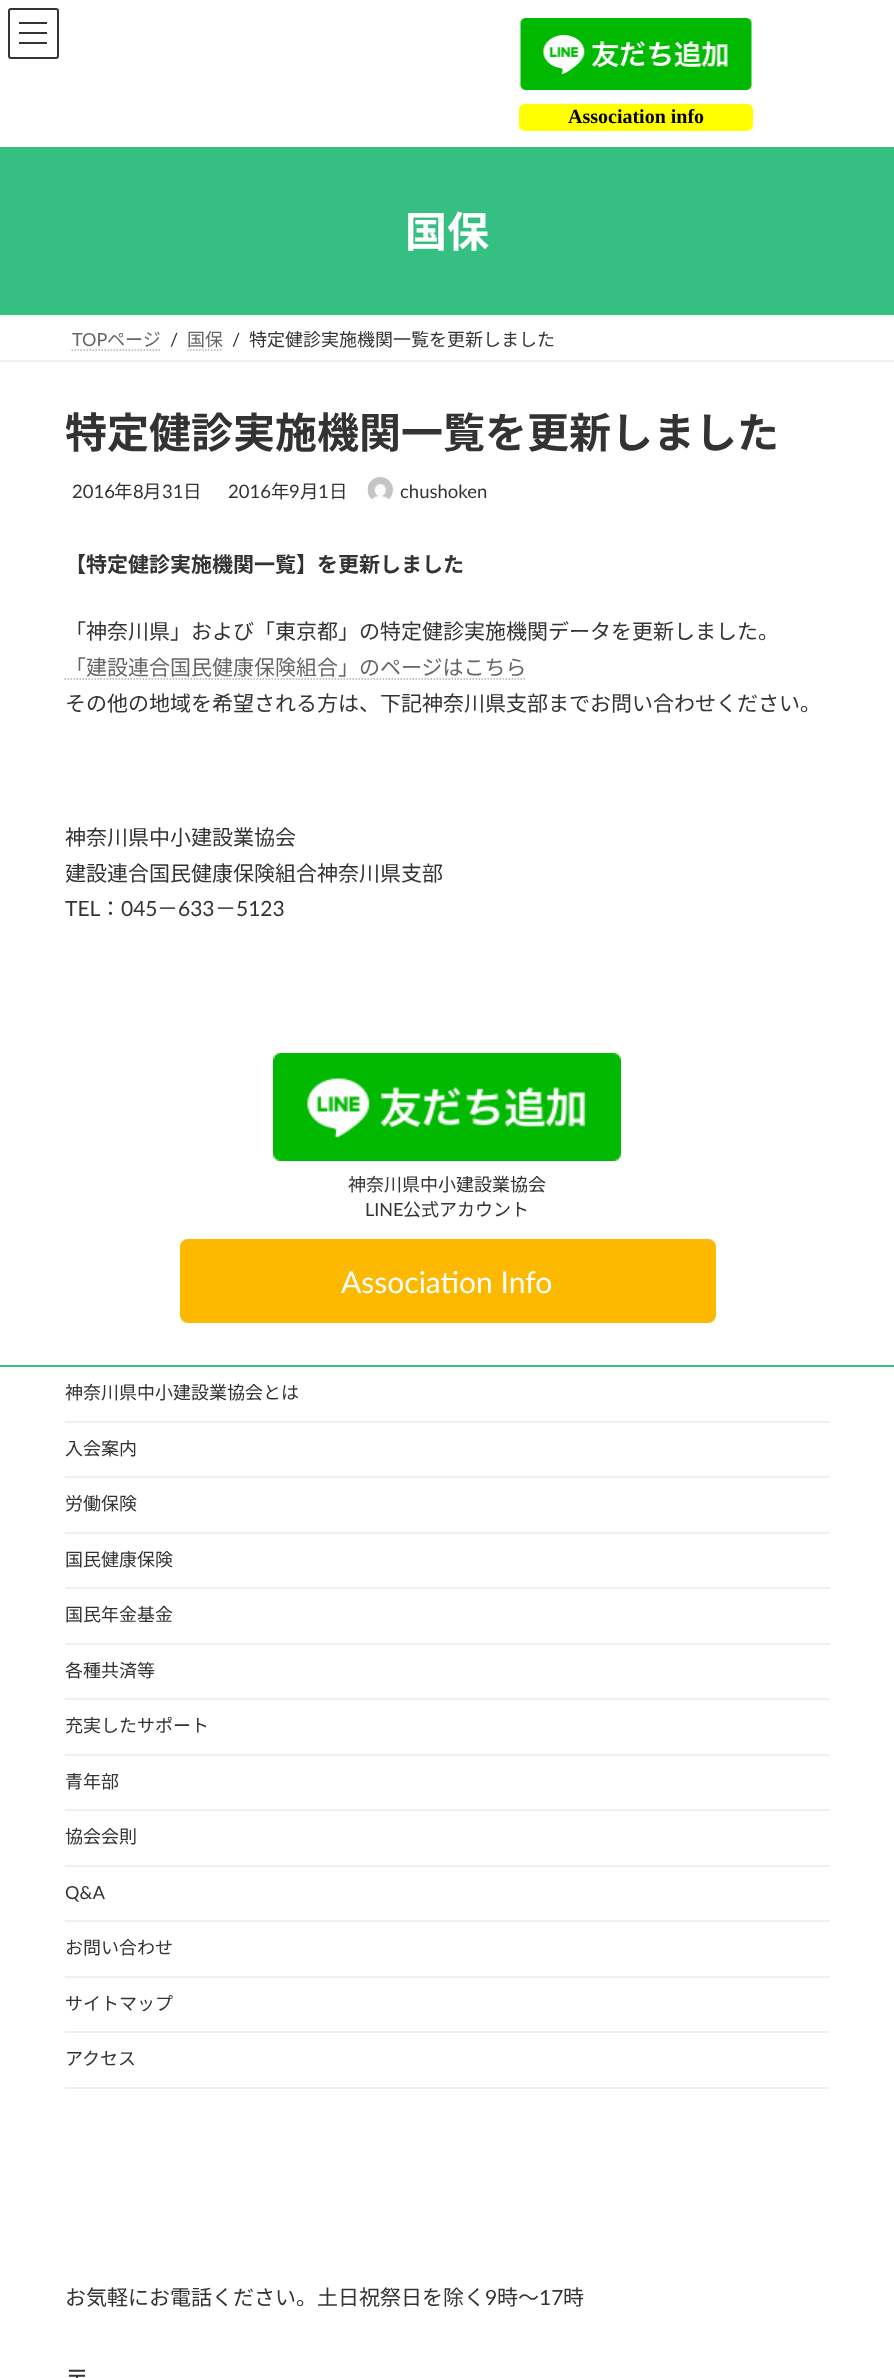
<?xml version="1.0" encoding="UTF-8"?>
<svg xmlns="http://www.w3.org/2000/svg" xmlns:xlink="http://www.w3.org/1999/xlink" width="894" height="2378">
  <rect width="100%" height="100%" fill="#ffffff" />
  <rect x="19" y="22" width="28" height="2" fill="#333333" />
  <rect x="19" y="32" width="28" height="2" fill="#333333" />
  <rect x="19" y="42" width="28" height="2" fill="#333333" />
  <rect x="9" y="9" width="49" height="49" rx="2" fill="none" stroke="#333333" stroke-width="2" />
  <image x="520" y="18" width="232" height="72" xlink:href="image1.png" />
  <rect x="519" y="104" width="234" height="27" rx="6" fill="#ffff00" />
  <rect y="147" width="894" height="168" fill="#35bf83" />
  <rect y="315" width="894" height="2" fill="#f0f0f0" />
  <rect y="360" width="894" height="2" fill="#f0f0f0" />
  <path d="M 71.5 350 h 89" fill="none" stroke="#b3b3b3" stroke-width="1.5" stroke-dasharray="1.5 1.5" />
  <path d="M 187 350 h 36" fill="none" stroke="#b3b3b3" stroke-width="1.5" stroke-dasharray="1.5 1.5" />
  <image x="367" y="477" width="26" height="23" xlink:href="image2.png" />
  <path d="M 64.5 679 h 461.5" fill="none" stroke="#b3b3b3" stroke-width="1.5" stroke-dasharray="1.5 1.5" />
  <image x="273" y="1053" width="348" height="108" xlink:href="image3.png" />
  <rect x="180" y="1239" width="536" height="84" rx="8" fill="#fcb900" />
  <rect y="1365" width="894" height="2" fill="#35bf83" />
  <rect x="65" y="1421" width="765" height="2" fill="#f0f0f0" />
  <rect x="65" y="1476" width="765" height="2" fill="#f0f0f0" />
  <rect x="65" y="1532" width="765" height="2" fill="#f0f0f0" />
  <rect x="65" y="1587" width="765" height="2" fill="#f0f0f0" />
  <rect x="65" y="1643" width="765" height="2" fill="#f0f0f0" />
  <rect x="65" y="1698" width="765" height="2" fill="#f0f0f0" />
  <rect x="65" y="1754" width="765" height="2" fill="#f0f0f0" />
  <rect x="65" y="1809" width="765" height="2" fill="#f0f0f0" />
  <rect x="65" y="1865" width="765" height="2" fill="#f0f0f0" />
  <rect x="65" y="1920" width="765" height="2" fill="#f0f0f0" />
  <rect x="65" y="1976" width="765" height="2" fill="#f0f0f0" />
  <rect x="65" y="2031" width="765" height="2" fill="#f0f0f0" />
  <rect x="65" y="2087" width="765" height="2" fill="#f0f0f0" />
  <text x="568" y="123" style="font-family: Liberation Serif; font-size: 20px; font-weight: bold; fill: #000000">Association info</text>
  <text x="405" y="247" style="font-family: Noto Sans JP; font-size: 42px; font-weight: bold; fill: #ffffff">国保</text>
  <text x="72" y="346" style="font-family: Lato; font-size: 18px; fill: #666666">TOP</text>
  <text x="107" y="346" style="font-family: Noto Sans JP; font-size: 18px; fill: #666666">ページ</text>
  <text x="170" y="346" style="font-family: Lato; font-size: 18px; fill: #333333">/</text>
  <text x="187" y="346" style="font-family: Noto Sans JP; font-size: 18px; fill: #666666">国保</text>
  <text x="232" y="346" style="font-family: Lato; font-size: 18px; fill: #333333">/</text>
  <text x="249" y="346" style="font-family: Noto Sans JP; font-size: 18px; fill: #333333">特定健診実施機関一覧を更新しました</text>
  <text x="65" y="448" style="font-family: Noto Sans JP; font-size: 42px; font-weight: bold; fill: #333333">特定健診実施機関一覧を更新しました</text>
  <text x="72" y="498" style="font-family: Lato; font-size: 18.5px; fill: #333333">2016</text>
  <text x="114" y="498" style="font-family: Noto Sans JP; font-size: 18.5px; fill: #333333">年</text>
  <text x="133" y="498" style="font-family: Lato; font-size: 18.5px; fill: #333333">8</text>
  <text x="143" y="498" style="font-family: Noto Sans JP; font-size: 18.5px; fill: #333333">月</text>
  <text x="162" y="498" style="font-family: Lato; font-size: 18.5px; fill: #333333">31</text>
  <text x="183" y="498" style="font-family: Noto Sans JP; font-size: 18.5px; fill: #333333">日</text>
  <text x="228" y="498" style="font-family: Lato; font-size: 18.5px; fill: #333333">2016</text>
  <text x="271" y="498" style="font-family: Noto Sans JP; font-size: 18.5px; fill: #333333">年</text>
  <text x="289" y="498" style="font-family: Lato; font-size: 18.5px; fill: #333333">9</text>
  <text x="300" y="498" style="font-family: Noto Sans JP; font-size: 18.5px; fill: #333333">月</text>
  <text x="318" y="498" style="font-family: Lato; font-size: 18.5px; fill: #333333">1</text>
  <text x="329" y="498" style="font-family: Noto Sans JP; font-size: 18.5px; fill: #333333">日</text>
  <text x="400" y="498" style="font-family: Lato; font-size: 18.5px; fill: #333333">chushoken</text>
  <text x="65" y="572" style="font-family: Noto Sans JP; font-size: 21px; font-weight: bold; fill: #333333">【特定健診実施機関一覧】を更新しました</text>
  <text x="65" y="639" style="font-family: Noto Sans JP; font-size: 21px; fill: #333333">「神奈川県」および「東京都」の特定健診実施機関データを更新しました。</text>
  <text x="65" y="675" style="font-family: Noto Sans JP; font-size: 21px; fill: #666666">「建設連合国民健康保険組合」のページはこちら</text>
  <text x="65" y="711" style="font-family: Noto Sans JP; font-size: 21px; fill: #333333">その他の地域を希望される方は、下記神奈川県支部までお問い合わせください。</text>
  <text x="65" y="845" style="font-family: Noto Sans JP; font-size: 21px; fill: #333333">神奈川県中小建設業協会</text>
  <text x="65" y="881" style="font-family: Noto Sans JP; font-size: 21px; fill: #333333">建設連合国民健康保険組合神奈川県支部</text>
  <text x="65" y="916" style="font-family: Lato; font-size: 21px; fill: #333333">TEL</text>
  <text x="100" y="916" style="font-family: Noto Sans JP; font-size: 21px; fill: #333333">：</text>
  <text x="121" y="916" style="font-family: Lato; font-size: 21px; fill: #333333">045</text>
  <text x="157" y="916" style="font-family: Noto Sans JP; font-size: 21px; fill: #333333">－</text>
  <text x="178" y="916" style="font-family: Lato; font-size: 21px; fill: #333333">633</text>
  <text x="215" y="916" style="font-family: Noto Sans JP; font-size: 21px; fill: #333333">－</text>
  <text x="236" y="916" style="font-family: Lato; font-size: 21px; fill: #333333">5123</text>
  <text x="348" y="1191" style="font-family: Noto Sans JP; font-size: 18px; fill: #333333">神奈川県中小建設業協会</text>
  <text x="365" y="1216" style="font-family: Lato; font-size: 18px; fill: #333333">LINE</text>
  <text x="403" y="1216" style="font-family: Noto Sans JP; font-size: 18px; fill: #333333">公式アカウント</text>
  <text x="341" y="1293" style="font-family: Lato; font-size: 30px; fill: #ffffff">Association Info</text>
  <text x="65" y="1399" style="font-family: Noto Sans JP; font-size: 18px; fill: #333333">神奈川県中小建設業協会とは</text>
  <text x="65" y="1455" style="font-family: Noto Sans JP; font-size: 18px; fill: #333333">入会案内</text>
  <text x="65" y="1510" style="font-family: Noto Sans JP; font-size: 18px; fill: #333333">労働保険</text>
  <text x="65" y="1566" style="font-family: Noto Sans JP; font-size: 18px; fill: #333333">国民健康保険</text>
  <text x="65" y="1621" style="font-family: Noto Sans JP; font-size: 18px; fill: #333333">国民年金基金</text>
  <text x="65" y="1677" style="font-family: Noto Sans JP; font-size: 18px; fill: #333333">各種共済等</text>
  <text x="65" y="1732" style="font-family: Noto Sans JP; font-size: 18px; fill: #333333">充実したサポート</text>
  <text x="65" y="1788" style="font-family: Noto Sans JP; font-size: 18px; fill: #333333">青年部</text>
  <text x="65" y="1843" style="font-family: Noto Sans JP; font-size: 18px; fill: #333333">協会会則</text>
  <text x="65" y="1899" style="font-family: Lato; font-size: 18px; fill: #333333">Q&amp;A</text>
  <text x="65" y="1954" style="font-family: Noto Sans JP; font-size: 18px; fill: #333333">お問い合わせ</text>
  <text x="65" y="2010" style="font-family: Noto Sans JP; font-size: 18px; fill: #333333">サイトマップ</text>
  <text x="65" y="2065" style="font-family: Noto Sans JP; font-size: 18px; fill: #333333">アクセス</text>
  <text x="65" y="2305" style="font-family: Noto Sans JP; font-size: 21px; fill: #333333">お気軽にお電話ください。土日祝祭日を除く</text>
  <text x="485" y="2305" style="font-family: Lato; font-size: 21px; fill: #333333">9</text>
  <text x="497" y="2305" style="font-family: Noto Sans JP; font-size: 21px; fill: #333333">時～</text>
  <text x="539" y="2305" style="font-family: Lato; font-size: 21px; fill: #333333">17</text>
  <text x="563" y="2305" style="font-family: Noto Sans JP; font-size: 21px; fill: #333333">時</text>
  <text x="65" y="2387" style="font-family: Noto Sans JP; font-size: 24px; fill: #333333">〒</text>
</svg>
